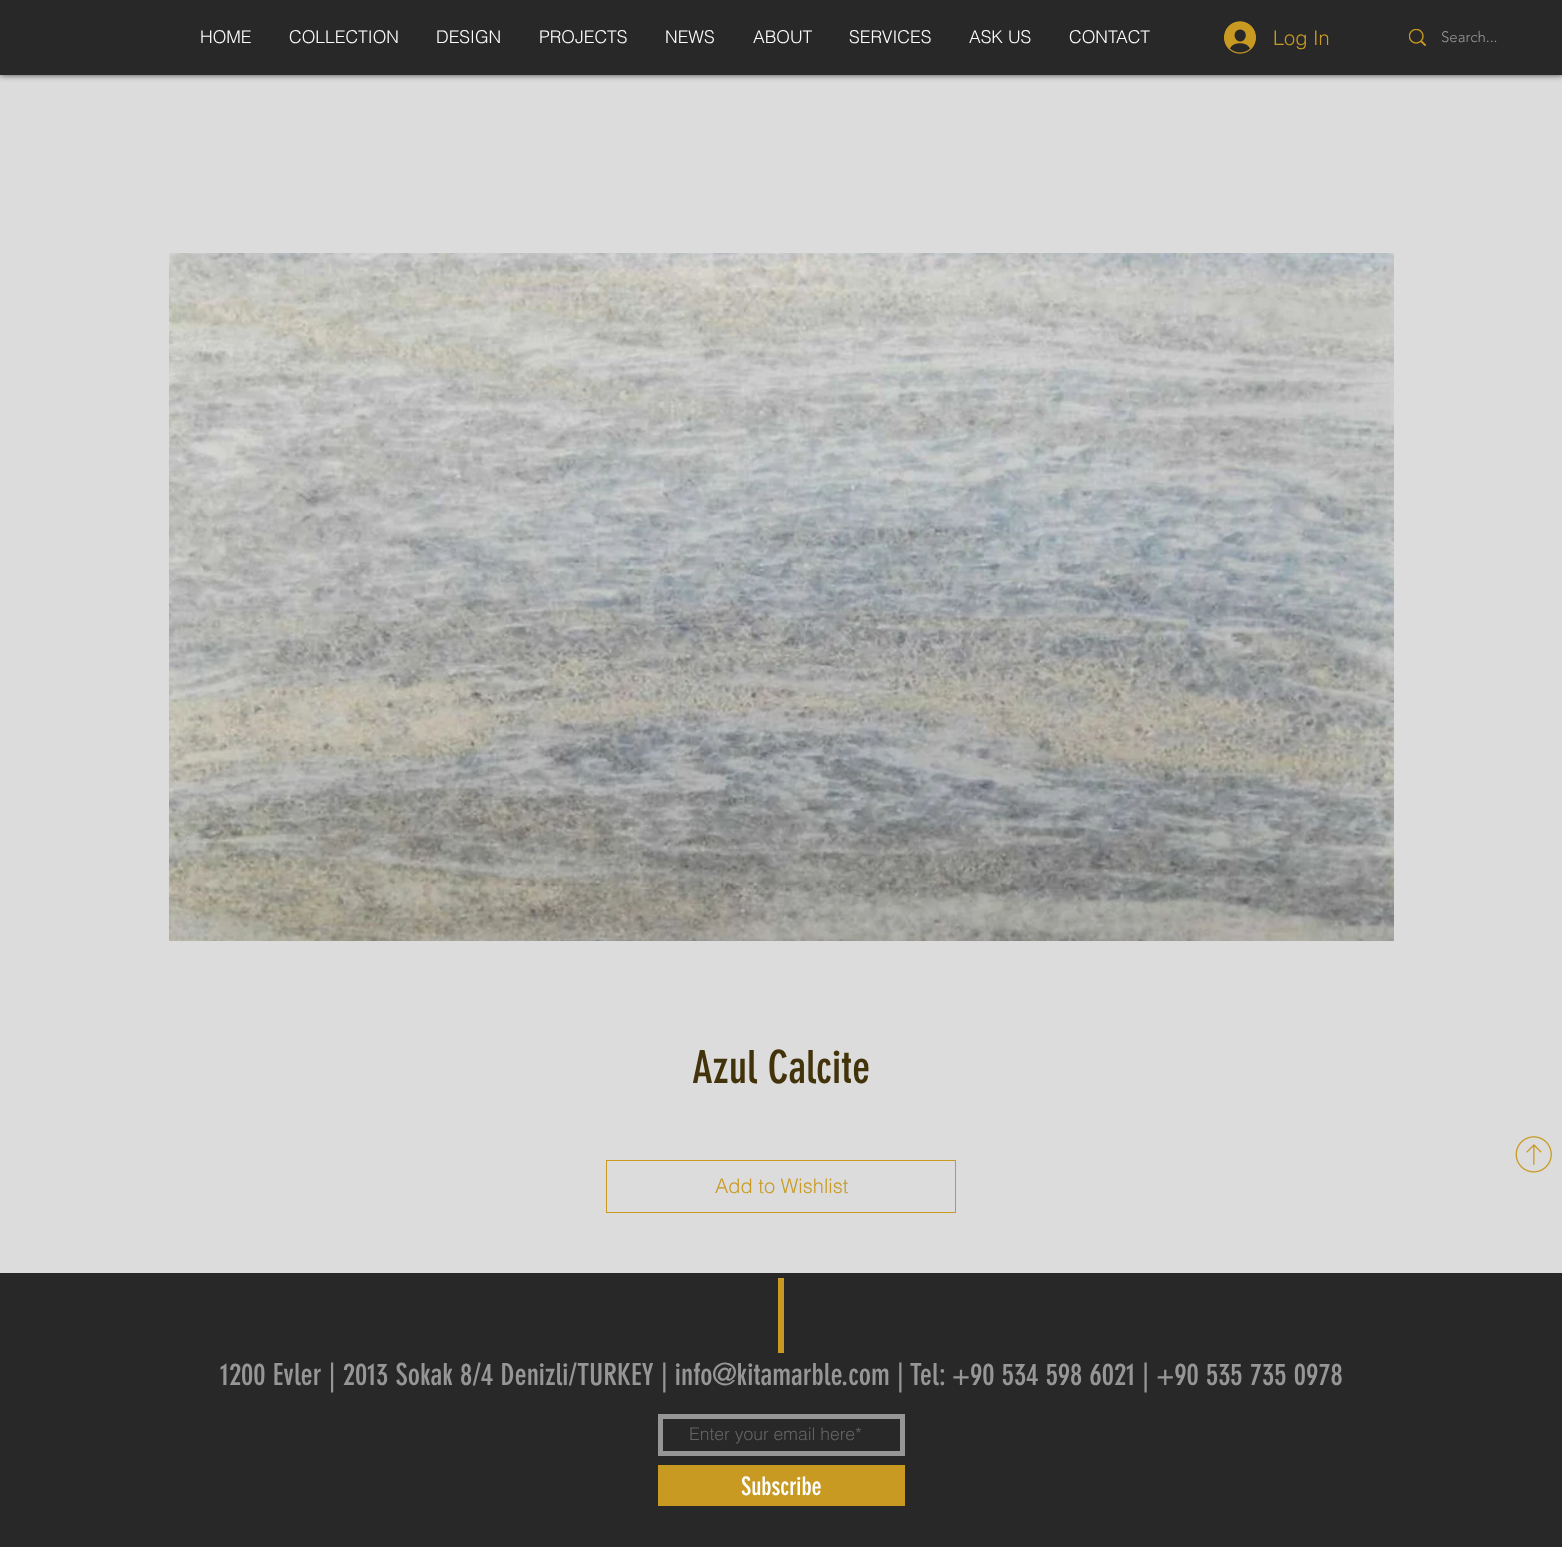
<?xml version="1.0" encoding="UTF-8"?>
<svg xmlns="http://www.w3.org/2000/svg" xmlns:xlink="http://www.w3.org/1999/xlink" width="1562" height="1547">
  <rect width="100%" height="100%" fill="#dcdcdc" />
  <rect width="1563" height="75" fill="#000000" fill-opacity="0.7" filter="blur(3px)" />
  <rect width="1562" height="75" fill="#282828" />
  <image x="1224" y="21" width="32" height="33" xlink:href="image1.png" />
  <image x="1409" y="29" width="17" height="17" xlink:href="image2.png" />
  <image x="169" y="253" width="1225" height="688" xlink:href="image3.png" />
  <rect x="606.5" y="1160.5" width="349" height="52" fill="none" stroke="#c99a22" />
  <image x="1515" y="1136" width="37" height="37" xlink:href="image4.png" />
  <rect y="1273" width="1562" height="274" fill="#282828" />
  <rect x="778" y="1278" width="6" height="75" fill="#c99a22" />
  <rect x="660.5" y="1416.5" width="242" height="37" fill="none" stroke="#969696" stroke-width="5" />
  <rect x="658" y="1465" width="247" height="41" fill="#c99a22" />
  <text x="200" y="43" style="font-family: helvetica; font-size: 17.5px; font-weight: 300; fill: #ffffff">HOME</text>
  <text x="289" y="43" style="font-family: helvetica; font-size: 17.5px; font-weight: 300; fill: #ffffff">COLLECTION</text>
  <text x="436" y="43" style="font-family: helvetica; font-size: 17.5px; font-weight: 300; fill: #ffffff">DESIGN</text>
  <text x="539" y="43" style="font-family: helvetica; font-size: 17.5px; font-weight: 300; fill: #ffffff">PROJECTS</text>
  <text x="665" y="43" style="font-family: helvetica; font-size: 17.5px; font-weight: 300; fill: #ffffff">NEWS</text>
  <text x="753" y="43" style="font-family: helvetica; font-size: 17.5px; font-weight: 300; fill: #ffffff">ABOUT</text>
  <text x="849" y="43" style="font-family: helvetica; font-size: 17.5px; font-weight: 300; fill: #ffffff">SERVICES</text>
  <text x="969" y="43" style="font-family: helvetica; font-size: 17.5px; font-weight: 300; fill: #ffffff">ASK US</text>
  <text x="1069" y="43" style="font-family: helvetica; font-size: 17.5px; font-weight: 300; fill: #ffffff">CONTACT</text>
  <text x="1273" y="45" style="font-family: helvetica; font-size: 20px; font-weight: 300; fill: #c99a22">Log In</text>
  <text x="1441" y="42" style="font-family: 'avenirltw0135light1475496'; font-size: 15px; font-weight: 300; fill: #969696">Search...</text>
  <text x="692" y="1083" style="font-family: 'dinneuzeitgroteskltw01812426'; font-size: 45px; fill: #43330b">Azul Calcite</text>
  <text x="715" y="1193" style="font-family: helvetica; font-size: 20px; font-weight: 300; fill: #c99a22">Add to Wishlist</text>
  <text x="220" y="1385" style="font-family: 'dinneuzeitgroteskltw01812426'; font-size: 30px; fill: #969696">1200 Evler | 2013 Sokak 8/4 Denizli/TURKEY | info@kitamarble.com | Tel: +90 534 598 6021 | +90 535 735 0978</text>
  <text x="689" y="1440" style="font-family: helvetica; font-size: 17.5px; font-weight: 300; fill: #646464">Enter your email here*</text>
  <text x="741" y="1495" style="font-family: 'dinneuzeitgroteskltw01812426'; font-size: 25px; fill: #ffffff">Subscribe</text>
</svg>
